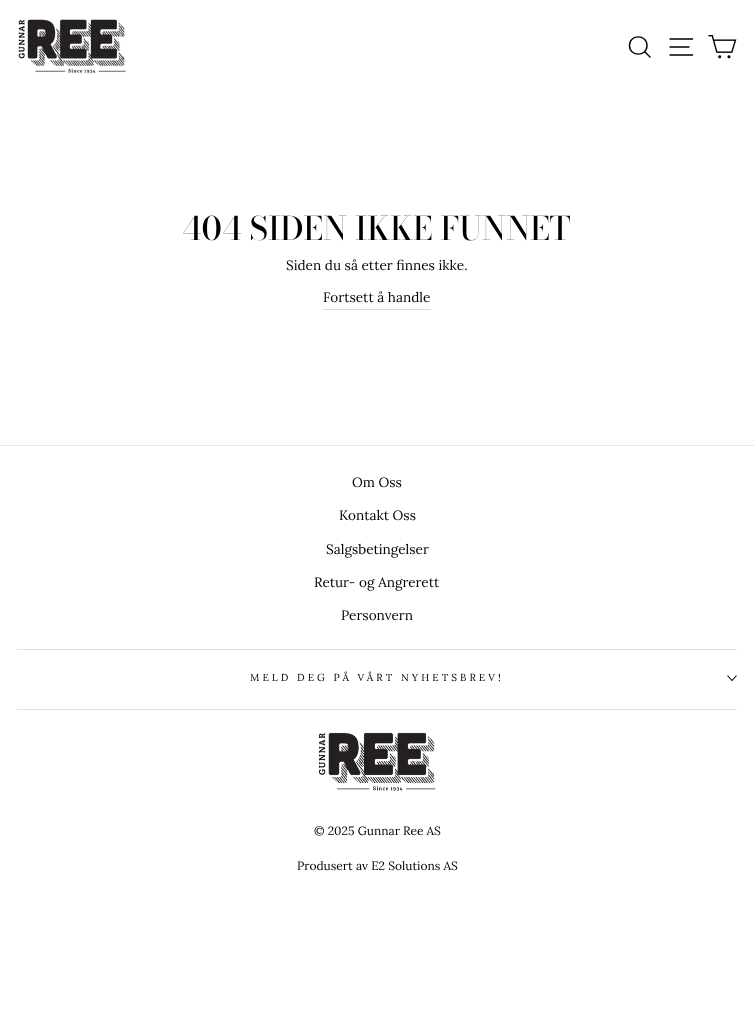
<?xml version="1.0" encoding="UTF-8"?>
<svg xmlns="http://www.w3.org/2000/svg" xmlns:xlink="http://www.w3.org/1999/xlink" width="754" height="1017">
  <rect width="100%" height="100%" fill="#ffffff" />
  <image x="18" y="19" width="108" height="55" xlink:href="image1.png" />
  <path d="M 647 45.5 c 0 11.5 -17.5 11.5 -17.5 0 c 0 -11.5 17.5 -11.5 17.5 0 z m 3.5 12 l -6 -6" fill="none" stroke="#000000" stroke-width="1.4" />
  <path d="M 669.5 39 h 23.5 m -23.5 8 h 20 m -20 8 h 23.5" fill="none" stroke="#000000" stroke-width="1.4" />
  <image x="708" y="35" width="29" height="24" xlink:href="image2.png" />
  <rect x="323" y="309" width="108" height="1" fill="#d9d9d9" />
  <rect y="445" width="754" height="1" fill="#e8e8e1" />
  <rect x="17" y="649" width="720" height="1" fill="#e0e0e0" />
  <path d="M 727.5 675.5 l 4.5 5 l 4.5 -5" fill="none" stroke="#000000" stroke-width="1.1" />
  <rect x="17" y="709" width="720" height="1" fill="#e0e0e0" />
  <image x="318" y="732" width="118" height="59" xlink:href="image3.png" />
  <text x="182" y="240" style="font-family: Bodoni Moda; font-size: 32.25px; font-weight: 500; fill: #000000">404 SIDEN IKKE FUNNET</text>
  <text x="286" y="270" style="font-family: Lora; font-size: 13.6px; fill: #000000">Siden du så etter finnes ikke.</text>
  <text x="323" y="302" style="font-family: Lora; font-size: 13.6px; fill: #000000">Fortsett å handle</text>
  <text x="352" y="487" style="font-family: Lora; font-size: 13.6px; fill: #000000">Om Oss</text>
  <text x="339" y="520" style="font-family: Lora; font-size: 13.6px; fill: #000000">Kontakt Oss</text>
  <text x="326" y="554" style="font-family: Lora; font-size: 13.6px; fill: #000000">Salgsbetingelser</text>
  <text x="314" y="587" style="font-family: Lora; font-size: 13.6px; fill: #000000">Retur- og Angrerett</text>
  <text x="341" y="620" style="font-family: Lora; font-size: 13.6px; fill: #000000">Personvern</text>
  <text x="250" y="681" style="font-family: Lora; font-size: 10.2px; letter-spacing: 3.05px; fill: #000000">MELD DEG PÅ VÅRT NYHETSBREV!</text>
  <text x="314" y="835" style="font-family: Lora; font-size: 12px; fill: #000000">© 2025 Gunnar Ree AS</text>
  <text x="297" y="870" style="font-family: Lora; font-size: 12px; fill: #000000">Produsert av E2 Solutions AS</text>
</svg>
